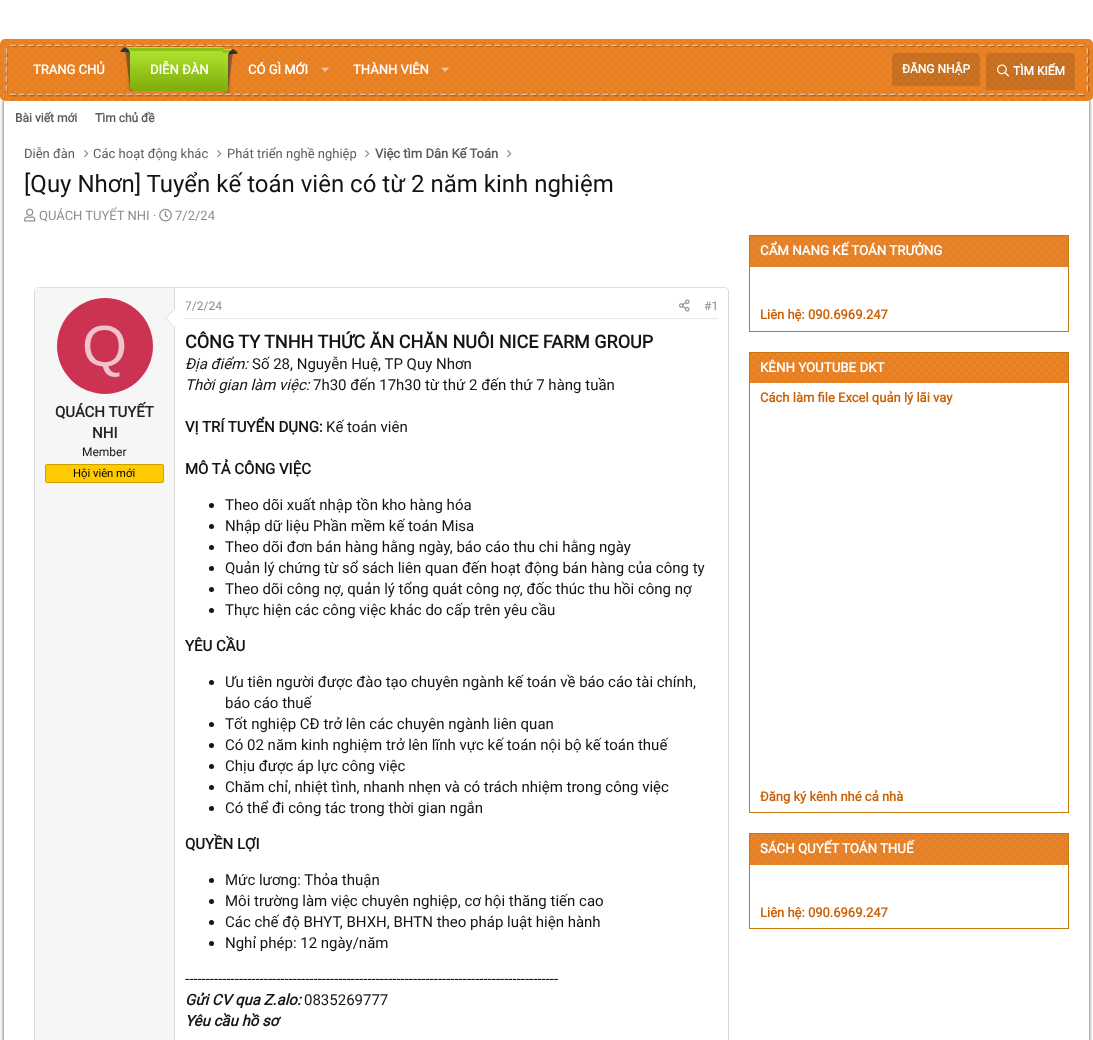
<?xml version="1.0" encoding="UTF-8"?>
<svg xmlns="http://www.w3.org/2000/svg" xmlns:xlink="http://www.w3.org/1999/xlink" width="1093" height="1040">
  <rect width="100%" height="100%" fill="#ffffff" />
  <rect y="39" width="1093" height="62" rx="5" fill="#e67e22" />
  <image x="0" y="39" width="1093" height="62" xlink:href="image1.png" />
  <image x="4" y="44" width="1086" height="53" xlink:href="image2.png" />
  <image x="120" y="47" width="15" height="44" xlink:href="image3.png" />
  <image x="135" y="47" width="88" height="44" xlink:href="image4.png" />
  <image x="223" y="49" width="15" height="44" xlink:href="image5.png" />
  <image x="321" y="67" width="8" height="5" xlink:href="image6.png" />
  <image x="441" y="67" width="8" height="5" xlink:href="image6.png" />
  <path d="M 896 53 h 80 c 2 0 4 2 4 4 v 29 h -88 v -29 c 0 -2 2 -4 4 -4 z" fill="#141414" fill-opacity="0.15" />
  <path d="M 990 53 h 81 c 2 0 4 2 4 4 v 33 h -89 v -33 c 0 -2 2 -4 4 -4 z" fill="#141414" fill-opacity="0.15" />
  <image x="997" y="64" width="12" height="13" xlink:href="image7.png" />
  <image x="0" y="101" width="1093" height="33" xlink:href="image8.png" />
  <image x="0" y="134" width="1093" height="906" xlink:href="image9.png" />
  <image x="84" y="150" width="5" height="8" xlink:href="image10.png" />
  <image x="217" y="150" width="5" height="8" xlink:href="image10.png" />
  <image x="365" y="150" width="5" height="8" xlink:href="image10.png" />
  <image x="507" y="150" width="5" height="8" xlink:href="image10.png" />
  <image x="24" y="208" width="12" height="14" xlink:href="image11.png" />
  <image x="159" y="208" width="13" height="14" xlink:href="image12.png" />
  <path d="M 35.5 288.5 l 2.5 -1 h 687 l 2.5 1" fill="none" stroke="#e0e0e0" />
  <path d="M 727.5 288.5 l 1 2.5 v 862 l -1 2.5" fill="none" stroke="#d9d9d9" />
  <path d="M 35.5 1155.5 l -1 -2.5 v -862 l 1 -2.5" fill="none" stroke="#d9d9d9" />
  <rect x="35" y="288" width="139" height="752" fill="#f6f6f6" />
  <rect x="174" y="288" width="1" height="752" fill="#d9d9d9" />
  <path d="M 175 308 v 20 l -10 -10 z" fill="#d9d9d9" />
  <path d="M 175 309 v 18 l -9 -9 z" fill="#ffffff" />
  <circle cx="105" cy="346" r="48" fill="#cc3352" />
  <rect x="45.5" y="464.5" width="118" height="18" rx="1.5" fill="#ffcb00" stroke="#cca200" />
  <rect x="185" y="318" width="533" height="1" fill="#e8e8e8" />
  <image x="679" y="299" width="11" height="13" xlink:href="image13.png" />
  <circle cx="211.5" cy="505.5" r="2.5" fill="#141414" />
  <circle cx="211.5" cy="526.5" r="2.5" fill="#141414" />
  <circle cx="211.5" cy="547.5" r="2.5" fill="#141414" />
  <circle cx="211.5" cy="568.5" r="2.5" fill="#141414" />
  <circle cx="211.5" cy="589.5" r="2.5" fill="#141414" />
  <circle cx="211.5" cy="610.5" r="2.5" fill="#141414" />
  <circle cx="211.5" cy="682.5" r="2.5" fill="#141414" />
  <circle cx="211.5" cy="724.5" r="2.5" fill="#141414" />
  <circle cx="211.5" cy="745.5" r="2.5" fill="#141414" />
  <circle cx="211.5" cy="766.5" r="2.5" fill="#141414" />
  <circle cx="211.5" cy="787.5" r="2.5" fill="#141414" />
  <circle cx="211.5" cy="808.5" r="2.5" fill="#141414" />
  <circle cx="211.5" cy="880.5" r="2.5" fill="#141414" />
  <circle cx="211.5" cy="901.5" r="2.5" fill="#141414" />
  <circle cx="211.5" cy="922.5" r="2.5" fill="#141414" />
  <circle cx="211.5" cy="943.5" r="2.5" fill="#141414" />
  <rect x="749.5" y="235.5" width="319" height="96" fill="none" stroke="#c7780c" />
  <rect x="750" y="236" width="318" height="31" fill="#e67e22" />
  <image x="750" y="236" width="318" height="31" xlink:href="image14.png" />
  <rect x="749.5" y="352.5" width="319" height="460" fill="none" stroke="#c7780c" />
  <rect x="750" y="353" width="318" height="30" fill="#e67e22" />
  <image x="750" y="353" width="318" height="30" xlink:href="image15.png" />
  <rect x="749.5" y="833.5" width="319" height="95" fill="none" stroke="#c7780c" />
  <rect x="750" y="834" width="318" height="31" fill="#e67e22" />
  <image x="750" y="834" width="318" height="31" xlink:href="image14.png" />
  <text x="33" y="74" style="font-family: Roboto; font-size: 13px; font-weight: bold; fill: #ffffff">TRANG CHỦ</text>
  <text x="150" y="74" style="font-family: Roboto; font-size: 13px; font-weight: bold; fill: #ffffff">DIỄN ĐÀN</text>
  <text x="248" y="74" style="font-family: Roboto; font-size: 13px; font-weight: bold; fill: #ffffff">CÓ GÌ MỚI</text>
  <text x="353" y="74" style="font-family: Roboto; font-size: 13px; font-weight: bold; fill: #ffffff">THÀNH VIÊN</text>
  <text x="902" y="73" style="font-family: Roboto; font-size: 12px; font-weight: bold; fill: #ffffff">ĐĂNG NHẬP</text>
  <text x="1013" y="75" style="font-family: Roboto; font-size: 12px; font-weight: bold; fill: #ffffff">TÌM KIẾM</text>
  <text x="15" y="122" style="font-family: Roboto; font-size: 12px; font-weight: bold; fill: #5c5c5c">Bài viết mới</text>
  <text x="95" y="122" style="font-family: Roboto; font-size: 12px; font-weight: bold; fill: #5c5c5c">Tìm chủ đề</text>
  <text x="24" y="158" style="font-family: Roboto; font-size: 13px; fill: #5c5c5c">Diễn đàn</text>
  <text x="93" y="158" style="font-family: Roboto; font-size: 13px; fill: #5c5c5c">Các hoạt động khác</text>
  <text x="227" y="158" style="font-family: Roboto; font-size: 13px; fill: #5c5c5c">Phát triển nghề nghiệp</text>
  <text x="375" y="158" style="font-family: Roboto; font-size: 13px; font-weight: bold; fill: #5c5c5c">Việc tìm Dân Kế Toán</text>
  <text x="24" y="192" style="font-family: Roboto; font-size: 24px; fill: #141414">[Quy Nhơn] Tuyển kế toán viên có từ 2 năm kinh nghiệm</text>
  <text x="39" y="220" style="font-family: Roboto; font-size: 13px; fill: #8c8c8c">QUÁCH TUYẾT NHI ·</text>
  <text x="175" y="220" style="font-family: Roboto; font-size: 13px; fill: #8c8c8c">7/2/24</text>
  <text x="82" y="366" style="font-family: Liberation Sans; font-size: 58px; fill: #f0c2cb">Q</text>
  <text x="55" y="417" style="font-family: Roboto; font-size: 15px; font-weight: bold; fill: #242424">QUÁCH TUYẾT</text>
  <text x="92" y="438" style="font-family: Roboto; font-size: 15px; font-weight: bold; fill: #242424">NHI</text>
  <text x="82" y="456" style="font-family: Roboto; font-size: 12px; fill: #141414">Member</text>
  <text x="73" y="477" style="font-family: Roboto; font-size: 11.25px; fill: #000000">Hội viên mới</text>
  <text x="185" y="310" style="font-family: Roboto; font-size: 12px; fill: #8c8c8c">7/2/24</text>
  <text x="704" y="310" style="font-family: Roboto; font-size: 12px; fill: #8c8c8c">#1</text>
  <text x="185" y="348" style="font-family: Roboto; font-size: 18px; font-weight: bold; fill: #141414">CÔNG TY TNHH THỨC ĂN CHĂN NUÔI NICE FARM GROUP</text>
  <text x="185" y="369" style="font-family: Roboto; font-size: 15px; font-style: italic; fill: #141414">Địa điểm:</text>
  <text x="252" y="369" style="font-family: Roboto; font-size: 15px; fill: #141414">Số 28, Nguyễn Huệ, TP Quy Nhơn</text>
  <text x="185" y="390" style="font-family: Roboto; font-size: 15px; font-style: italic; fill: #141414">Thời gian làm việc:</text>
  <text x="313" y="390" style="font-family: Roboto; font-size: 15px; fill: #141414">7h30 đến 17h30 từ thứ 2 đến thứ 7 hàng tuần</text>
  <text x="185" y="432" style="font-family: Roboto; font-size: 15px; font-weight: bold; fill: #141414">VỊ TRÍ TUYỂN DỤNG:</text>
  <text x="326" y="432" style="font-family: Roboto; font-size: 15px; fill: #141414">Kế toán viên</text>
  <text x="185" y="474" style="font-family: Roboto; font-size: 15px; font-weight: bold; fill: #141414">MÔ TẢ CÔNG VIỆC</text>
  <text x="225" y="510" style="font-family: Roboto; font-size: 15px; fill: #141414">Theo dõi xuất nhập tồn kho hàng hóa</text>
  <text x="225" y="531" style="font-family: Roboto; font-size: 15px; fill: #141414">Nhập dữ liệu Phần mềm kế toán Misa</text>
  <text x="225" y="552" style="font-family: Roboto; font-size: 15px; fill: #141414">Theo dõi đơn bán hàng hằng ngày, báo cáo thu chi hằng ngày</text>
  <text x="225" y="573" style="font-family: Roboto; font-size: 15px; fill: #141414">Quản lý chứng từ sổ sách liên quan đến hoạt động bán hàng của công ty</text>
  <text x="225" y="594" style="font-family: Roboto; font-size: 15px; fill: #141414">Theo dõi công nợ, quản lý tổng quát công nợ, đốc thúc thu hồi công nợ</text>
  <text x="225" y="615" style="font-family: Roboto; font-size: 15px; fill: #141414">Thực hiện các công việc khác do cấp trên yêu cầu</text>
  <text x="185" y="651" style="font-family: Roboto; font-size: 15px; font-weight: bold; fill: #141414">YÊU CẦU</text>
  <text x="225" y="687" style="font-family: Roboto; font-size: 15px; fill: #141414">Ưu tiên người được đào tạo chuyên ngành kế toán về báo cáo tài chính,</text>
  <text x="225" y="708" style="font-family: Roboto; font-size: 15px; fill: #141414">báo cáo thuế</text>
  <text x="225" y="729" style="font-family: Roboto; font-size: 15px; fill: #141414">Tốt nghiệp CĐ trở lên các chuyên ngành liên quan</text>
  <text x="225" y="750" style="font-family: Roboto; font-size: 15px; fill: #141414">Có 02 năm kinh nghiệm trở lên lĩnh vực kế toán nội bộ kế toán thuế</text>
  <text x="225" y="771" style="font-family: Roboto; font-size: 15px; fill: #141414">Chịu được áp lực công việc</text>
  <text x="225" y="792" style="font-family: Roboto; font-size: 15px; fill: #141414">Chăm chỉ, nhiệt tình, nhanh nhẹn và có trách nhiệm trong công việc</text>
  <text x="225" y="813" style="font-family: Roboto; font-size: 15px; fill: #141414">Có thể đi công tác trong thời gian ngắn</text>
  <text x="185" y="849" style="font-family: Roboto; font-size: 15px; font-weight: bold; fill: #141414">QUYỀN LỢI</text>
  <text x="225" y="885" style="font-family: Roboto; font-size: 15px; fill: #141414">Mức lương: Thỏa thuận</text>
  <text x="225" y="906" style="font-family: Roboto; font-size: 15px; fill: #141414">Môi trường làm việc chuyên nghiệp, cơ hội thăng tiến cao</text>
  <text x="225" y="927" style="font-family: Roboto; font-size: 15px; fill: #141414">Các chế độ BHYT, BHXH, BHTN theo pháp luật hiện hành</text>
  <text x="225" y="948" style="font-family: Roboto; font-size: 15px; fill: #141414">Nghỉ phép: 12 ngày/năm</text>
  <text x="185" y="984" style="font-family: Roboto; font-size: 15px; fill: #141414">------------------------------------------------------------------------------------------</text>
  <text x="185" y="1005" style="font-family: Roboto; font-size: 15px; font-weight: bold; font-style: italic; fill: #141414">Gửi CV qua Z.alo:</text>
  <text x="304" y="1005" style="font-family: Roboto; font-size: 15px; fill: #141414">0835269777</text>
  <text x="185" y="1026" style="font-family: Roboto; font-size: 15px; font-weight: bold; font-style: italic; fill: #141414">Yêu cầu hồ sơ</text>
  <text x="760" y="255" style="font-family: Roboto; font-size: 13.3px; font-weight: bold; fill: #ffffff">CẨM NANG KẾ TOÁN TRƯỞNG</text>
  <text x="760" y="319" style="font-family: Roboto; font-size: 13px; font-weight: bold; fill: #c96206">Liên hệ: 090.6969.247</text>
  <text x="760" y="372" style="font-family: Roboto; font-size: 13.3px; font-weight: bold; fill: #ffffff">KÊNH YOUTUBE DKT</text>
  <text x="760" y="402" style="font-family: Roboto; font-size: 13px; font-weight: bold; fill: #c96206">Cách làm file Excel quản lý lãi vay</text>
  <text x="760" y="801" style="font-family: Roboto; font-size: 13px; font-weight: bold; fill: #c96206">Đăng ký kênh nhé cả nhà</text>
  <text x="760" y="853" style="font-family: Roboto; font-size: 13.3px; font-weight: bold; fill: #ffffff">SÁCH QUYẾT TOÁN THUẾ</text>
  <text x="760" y="917" style="font-family: Roboto; font-size: 13px; font-weight: bold; fill: #c96206">Liên hệ: 090.6969.247</text>
</svg>
